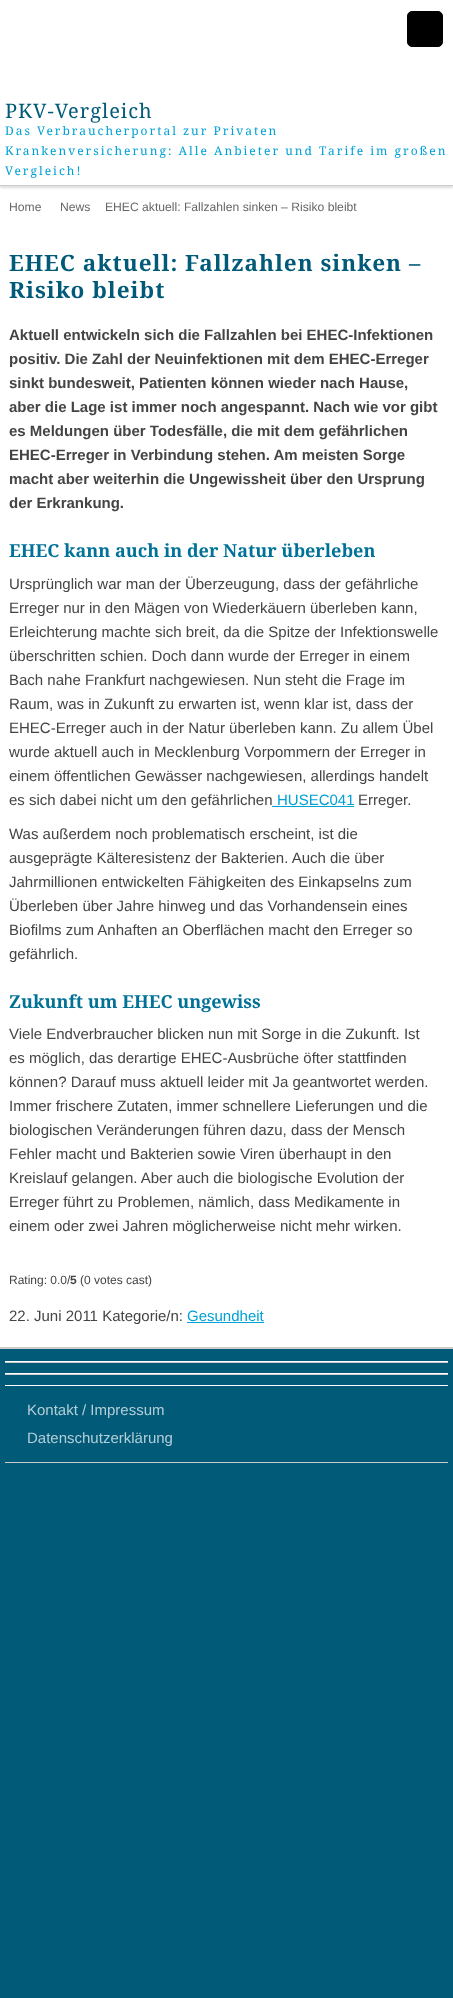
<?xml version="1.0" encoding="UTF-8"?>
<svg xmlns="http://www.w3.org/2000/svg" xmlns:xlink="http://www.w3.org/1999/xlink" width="453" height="1998">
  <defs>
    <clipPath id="clip1"><rect x="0" y="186" width="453" height="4" /></clipPath>
  </defs>
  <rect width="100%" height="100%" fill="#005a78" />
  <rect y="2" width="453" height="1345" fill="#ffffff" />
  <g clip-path="url(#clip1)">
    <rect y="2" width="453" height="186" fill="#dddddd" filter="blur(1px)" />
  </g>
  <rect width="453" height="2" fill="#ffffff" />
  <rect x="407.5" y="11.5" width="35" height="35" rx="4.5" fill="#000000" stroke="#000000" />
  <rect y="185" width="453" height="1" fill="#cccccc" />
  <rect x="272" y="806" width="82" height="1" fill="#00a1d5" />
  <rect x="187" y="1322" width="77" height="1" fill="#00a1d5" />
  <rect y="1347" width="453" height="2" fill="#cccccc" />
  <rect x="5" y="1361" width="443" height="1" fill="#ffffff" />
  <rect x="5" y="1362" width="443" height="1" fill="#cccccc" />
  <rect x="5" y="1373" width="443" height="1" fill="#ffffff" />
  <rect x="5" y="1374" width="443" height="1" fill="#cccccc" />
  <rect x="5" y="1385" width="443" height="1" fill="#ffffff" />
  <rect x="5" y="1462" width="443" height="1" fill="#cccccc" />
  <text x="5" y="118" style="font-family: Noto Serif; font-size: 20px; letter-spacing: 1px; fill: #005a78">PKV-Vergleich</text>
  <text x="5" y="135" style="font-family: Noto Serif; font-size: 12px; letter-spacing: 2px; fill: #00a1d5">Das Verbraucherportal zur Privaten</text>
  <text x="5" y="155" style="font-family: Noto Serif; font-size: 12px; letter-spacing: 2px; fill: #00a1d5">Krankenversicherung: Alle Anbieter und Tarife im großen</text>
  <text x="5" y="175" style="font-family: Noto Serif; font-size: 12px; letter-spacing: 2px; fill: #00a1d5">Vergleich!</text>
  <text x="9" y="211" style="font-family: Liberation Sans; font-size: 12.15px; fill: #666666">Home</text>
  <text x="60" y="211" style="font-family: Liberation Sans; font-size: 12.15px; fill: #666666">News</text>
  <text x="105" y="211" style="font-family: Liberation Sans; font-size: 12.15px; fill: #666666">EHEC aktuell: Fallzahlen sinken – Risiko bleibt</text>
  <text x="9" y="271" style="font-family: Noto Serif; font-size: 22.5px; font-weight: bold; letter-spacing: 1px; fill: #005a78">EHEC aktuell: Fallzahlen sinken –</text>
  <text x="9" y="298" style="font-family: Noto Serif; font-size: 22.5px; font-weight: bold; letter-spacing: 1px; fill: #005a78">Risiko bleibt</text>
  <text x="9" y="340" style="font-family: Liberation Sans; font-size: 15px; font-weight: bold; fill: #444444">Aktuell entwickeln sich die Fallzahlen bei EHEC-Infektionen</text>
  <text x="9" y="364" style="font-family: Liberation Sans; font-size: 15px; font-weight: bold; fill: #444444">positiv. Die Zahl der Neuinfektionen mit dem EHEC-Erreger</text>
  <text x="9" y="388" style="font-family: Liberation Sans; font-size: 15px; font-weight: bold; fill: #444444">sinkt bundesweit, Patienten können wieder nach Hause,</text>
  <text x="9" y="412" style="font-family: Liberation Sans; font-size: 15px; font-weight: bold; fill: #444444">aber die Lage ist immer noch angespannt. Nach wie vor gibt</text>
  <text x="9" y="436" style="font-family: Liberation Sans; font-size: 15px; font-weight: bold; fill: #444444">es Meldungen über Todesfälle, die mit dem gefährlichen</text>
  <text x="9" y="460" style="font-family: Liberation Sans; font-size: 15px; font-weight: bold; fill: #444444">EHEC-Erreger in Verbindung stehen. Am meisten Sorge</text>
  <text x="9" y="484" style="font-family: Liberation Sans; font-size: 15px; font-weight: bold; fill: #444444">macht aber weiterhin die Ungewissheit über den Ursprung</text>
  <text x="9" y="508" style="font-family: Liberation Sans; font-size: 15px; font-weight: bold; fill: #444444">der Erkrankung.</text>
  <text x="9" y="557" style="font-family: Noto Serif; font-size: 18px; font-weight: bold; fill: #007298">EHEC kann auch in der Natur überleben</text>
  <text x="9" y="589" style="font-family: Liberation Sans; font-size: 15px; fill: #444444">Ursprünglich war man der Überzeugung, dass der gefährliche</text>
  <text x="9" y="613" style="font-family: Liberation Sans; font-size: 15px; fill: #444444">Erreger nur in den Mägen von Wiederkäuern überleben kann,</text>
  <text x="9" y="637" style="font-family: Liberation Sans; font-size: 15px; fill: #444444">Erleichterung machte sich breit, da die Spitze der Infektionswelle</text>
  <text x="9" y="661" style="font-family: Liberation Sans; font-size: 15px; fill: #444444">überschritten schien. Doch dann wurde der Erreger in einem</text>
  <text x="9" y="685" style="font-family: Liberation Sans; font-size: 15px; fill: #444444">Bach nahe Frankfurt nachgewiesen. Nun steht die Frage im</text>
  <text x="9" y="709" style="font-family: Liberation Sans; font-size: 15px; fill: #444444">Raum, was in Zukunft zu erwarten ist, wenn klar ist, dass der</text>
  <text x="9" y="733" style="font-family: Liberation Sans; font-size: 15px; fill: #444444">EHEC-Erreger auch in der Natur überleben kann. Zu allem Übel</text>
  <text x="9" y="757" style="font-family: Liberation Sans; font-size: 15px; fill: #444444">wurde aktuell auch in Mecklenburg Vorpommern der Erreger in</text>
  <text x="9" y="781" style="font-family: Liberation Sans; font-size: 15px; fill: #444444">einem öffentlichen Gewässer nachgewiesen, allerdings handelt</text>
  <text x="9" y="805" style="font-family: Liberation Sans; font-size: 15px; fill: #444444">es sich dabei nicht um den gefährlichen</text>
  <text x="277" y="805" style="font-family: Liberation Sans; font-size: 15px; fill: #00a1d5">HUSEC041</text>
  <text x="358" y="805" style="font-family: Liberation Sans; font-size: 15px; fill: #444444">Erreger.</text>
  <text x="9" y="839" style="font-family: Liberation Sans; font-size: 15px; fill: #444444">Was außerdem noch problematisch erscheint, ist die</text>
  <text x="9" y="863" style="font-family: Liberation Sans; font-size: 15px; fill: #444444">ausgeprägte Kälteresistenz der Bakterien. Auch die über</text>
  <text x="9" y="887" style="font-family: Liberation Sans; font-size: 15px; fill: #444444">Jahrmillionen entwickelten Fähigkeiten des Einkapselns zum</text>
  <text x="9" y="911" style="font-family: Liberation Sans; font-size: 15px; fill: #444444">Überleben über Jahre hinweg und das Vorhandensein eines</text>
  <text x="9" y="935" style="font-family: Liberation Sans; font-size: 15px; fill: #444444">Biofilms zum Anhaften an Oberflächen macht den Erreger so</text>
  <text x="9" y="959" style="font-family: Liberation Sans; font-size: 15px; fill: #444444">gefährlich.</text>
  <text x="9" y="1008" style="font-family: Noto Serif; font-size: 18px; font-weight: bold; fill: #007298">Zukunft um EHEC ungewiss</text>
  <text x="9" y="1039" style="font-family: Liberation Sans; font-size: 15px; fill: #444444">Viele Endverbraucher blicken nun mit Sorge in die Zukunft. Ist</text>
  <text x="9" y="1063" style="font-family: Liberation Sans; font-size: 15px; fill: #444444">es möglich, das derartige EHEC-Ausbrüche öfter stattfinden</text>
  <text x="9" y="1087" style="font-family: Liberation Sans; font-size: 15px; fill: #444444">können? Darauf muss aktuell leider mit Ja geantwortet werden.</text>
  <text x="9" y="1111" style="font-family: Liberation Sans; font-size: 15px; fill: #444444">Immer frischere Zutaten, immer schnellere Lieferungen und die</text>
  <text x="9" y="1135" style="font-family: Liberation Sans; font-size: 15px; fill: #444444">biologischen Veränderungen führen dazu, dass der Mensch</text>
  <text x="9" y="1159" style="font-family: Liberation Sans; font-size: 15px; fill: #444444">Fehler macht und Bakterien sowie Viren überhaupt in den</text>
  <text x="9" y="1183" style="font-family: Liberation Sans; font-size: 15px; fill: #444444">Kreislauf gelangen. Aber auch die biologische Evolution der</text>
  <text x="9" y="1207" style="font-family: Liberation Sans; font-size: 15px; fill: #444444">Erreger führt zu Problemen, nämlich, dass Medikamente in</text>
  <text x="9" y="1231" style="font-family: Liberation Sans; font-size: 15px; fill: #444444">einem oder zwei Jahren möglicherweise nicht mehr wirken.</text>
  <text x="9" y="1284" style="font-family: Liberation Sans; font-size: 12px; fill: #444444">Rating: 0.0/</text>
  <text x="70" y="1284" style="font-family: Liberation Sans; font-size: 12px; font-weight: bold; fill: #444444">5</text>
  <text x="80" y="1284" style="font-family: Liberation Sans; font-size: 12px; fill: #444444">(0 votes cast)</text>
  <text x="9" y="1321" style="font-family: Liberation Sans; font-size: 15px; fill: #444444">22. Juni 2011 Kategorie/n:</text>
  <text x="187" y="1321" style="font-family: Liberation Sans; font-size: 15px; fill: #00a1d5">Gesundheit</text>
  <text x="27" y="1415" style="font-family: Liberation Sans; font-size: 15px; fill: #b3ced7">Kontakt / Impressum</text>
  <text x="27" y="1443" style="font-family: Liberation Sans; font-size: 15px; fill: #b3ced7">Datenschutzerklärung</text>
</svg>
